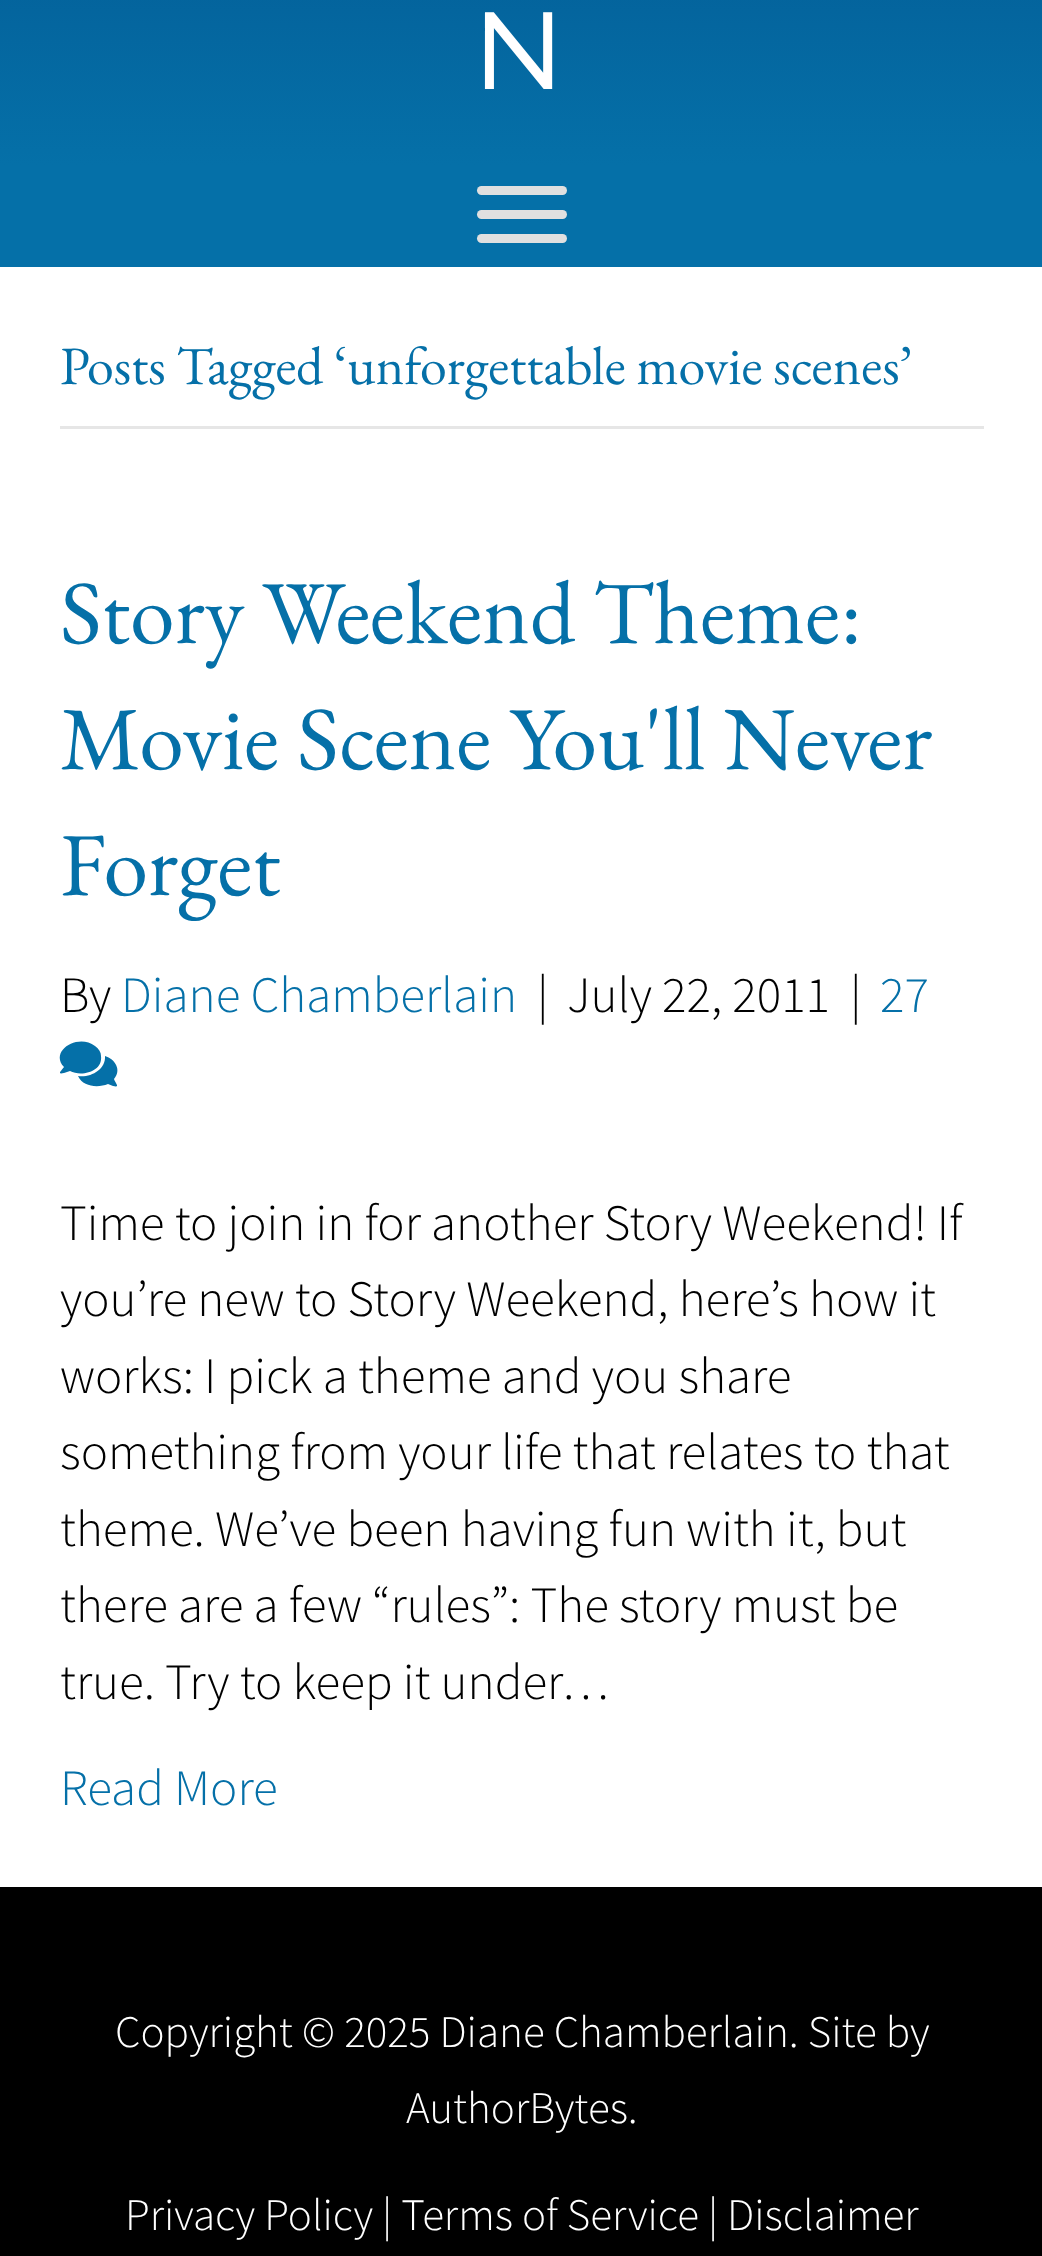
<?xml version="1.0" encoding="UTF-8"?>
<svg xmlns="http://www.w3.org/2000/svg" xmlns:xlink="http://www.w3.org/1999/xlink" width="1042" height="2256">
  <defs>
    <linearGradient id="g1" gradientUnits="userSpaceOnUse" x1="522" y1="-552" x2="522" y2="165"><stop offset="0" stop-color="#003d79" /><stop offset="1" stop-color="#0570a8" /></linearGradient>
  </defs>
  <rect width="100%" height="100%" fill="#ffffff" />
  <rect width="1042" height="165" fill="url(#g1)" />
  <rect y="165" width="1042" height="102" fill="#0570a8" />
  <rect x="477" y="210" width="90" height="9" rx="4.5" fill="#e0e0e0" />
  <rect x="477" y="186" width="90" height="9" rx="4.5" fill="#e0e0e0" />
  <rect x="477" y="234" width="90" height="9" rx="4.5" fill="#e0e0e0" />
  <rect x="60" y="426" width="924" height="3" fill="#e6e6e6" />
  <path d="M 95 1046 c 4 3 6 6 6 10 c 2 16 -20 21 -31 15 l -6 2 c -8 2 -2 -3 0 -6 c -15 -16 14 -34 31 -21 z m 19 33 c 1 4 7 9 -1 7 l -5 -2 c -10 4 -25 3 -30 -8 c 12 2 28 -6 27 -20 c 10 3 17 14 9 23 z" fill="#0570a8" />
  <rect y="1887" width="1042" height="369" fill="#000000" />
  <text x="475" y="89" style="font-family: Spinnaker; font-size: 111px; letter-spacing: 7px; fill: #ffffff">N</text>
  <text x="60" y="384" style="font-family: EB Garamond; font-size: 54px; fill: #0570a8">Posts Tagged ‘unforgettable movie scenes’</text>
  <text x="60" y="643" style="font-family: EB Garamond; font-size: 90px; fill: #0570a8">Story Weekend Theme:</text>
  <text x="60" y="769" style="font-family: EB Garamond; font-size: 90px; fill: #0570a8">Movie Scene You'll Never</text>
  <text x="60" y="895" style="font-family: EB Garamond; font-size: 90px; fill: #0570a8">Forget</text>
  <text x="60" y="1012" style="font-family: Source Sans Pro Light; font-size: 51px; font-weight: 300; fill: #000000">By</text>
  <text x="121" y="1012" style="font-family: Source Sans Pro Light; font-size: 51px; font-weight: 300; fill: #0570a8">Diane Chamberlain</text>
  <text x="537" y="1012" style="font-family: Source Sans Pro Light; font-size: 51px; font-weight: 300; fill: #000000">|</text>
  <text x="567" y="1012" style="font-family: Source Sans Pro Light; font-size: 51px; font-weight: 300; fill: #000000">July 22, 2011</text>
  <text x="850" y="1012" style="font-family: Source Sans Pro Light; font-size: 51px; font-weight: 300; fill: #000000">|</text>
  <text x="880" y="1012" style="font-family: Source Sans Pro Light; font-size: 51px; font-weight: 300; fill: #0570a8">27</text>
  <text x="60" y="1240" style="font-family: Source Sans Pro Light; font-size: 51px; font-weight: 300; fill: #000000">Time to join in for another Story Weekend! If</text>
  <text x="60" y="1316" style="font-family: Source Sans Pro Light; font-size: 51px; font-weight: 300; fill: #000000">you’re new to Story Weekend, here’s how it</text>
  <text x="60" y="1393" style="font-family: Source Sans Pro Light; font-size: 51px; font-weight: 300; fill: #000000">works: I pick a theme and you share</text>
  <text x="60" y="1469" style="font-family: Source Sans Pro Light; font-size: 51px; font-weight: 300; fill: #000000">something from your life that relates to that</text>
  <text x="60" y="1546" style="font-family: Source Sans Pro Light; font-size: 51px; font-weight: 300; fill: #000000">theme. We’ve been having fun with it, but</text>
  <text x="60" y="1622" style="font-family: Source Sans Pro Light; font-size: 51px; font-weight: 300; fill: #000000">there are a few “rules”: The story must be</text>
  <text x="60" y="1699" style="font-family: Source Sans Pro Light; font-size: 51px; font-weight: 300; fill: #000000">true. Try to keep it under…</text>
  <text x="60" y="1805" style="font-family: Source Sans Pro Light; font-size: 51px; font-weight: 300; fill: #0570a8">Read More</text>
  <text x="115" y="2047" style="font-family: Source Sans Pro Light; font-size: 45px; font-weight: 300; fill: #ffffff">Copyright © 2025 Diane Chamberlain. Site by</text>
  <text x="406" y="2123" style="font-family: Source Sans Pro Light; font-size: 45px; font-weight: 300; fill: #ffffff">AuthorBytes.</text>
  <text x="125" y="2230" style="font-family: Source Sans Pro Light; font-size: 45px; font-weight: 300; fill: #ffffff">Privacy Policy | Terms of Service | Disclaimer</text>
</svg>
